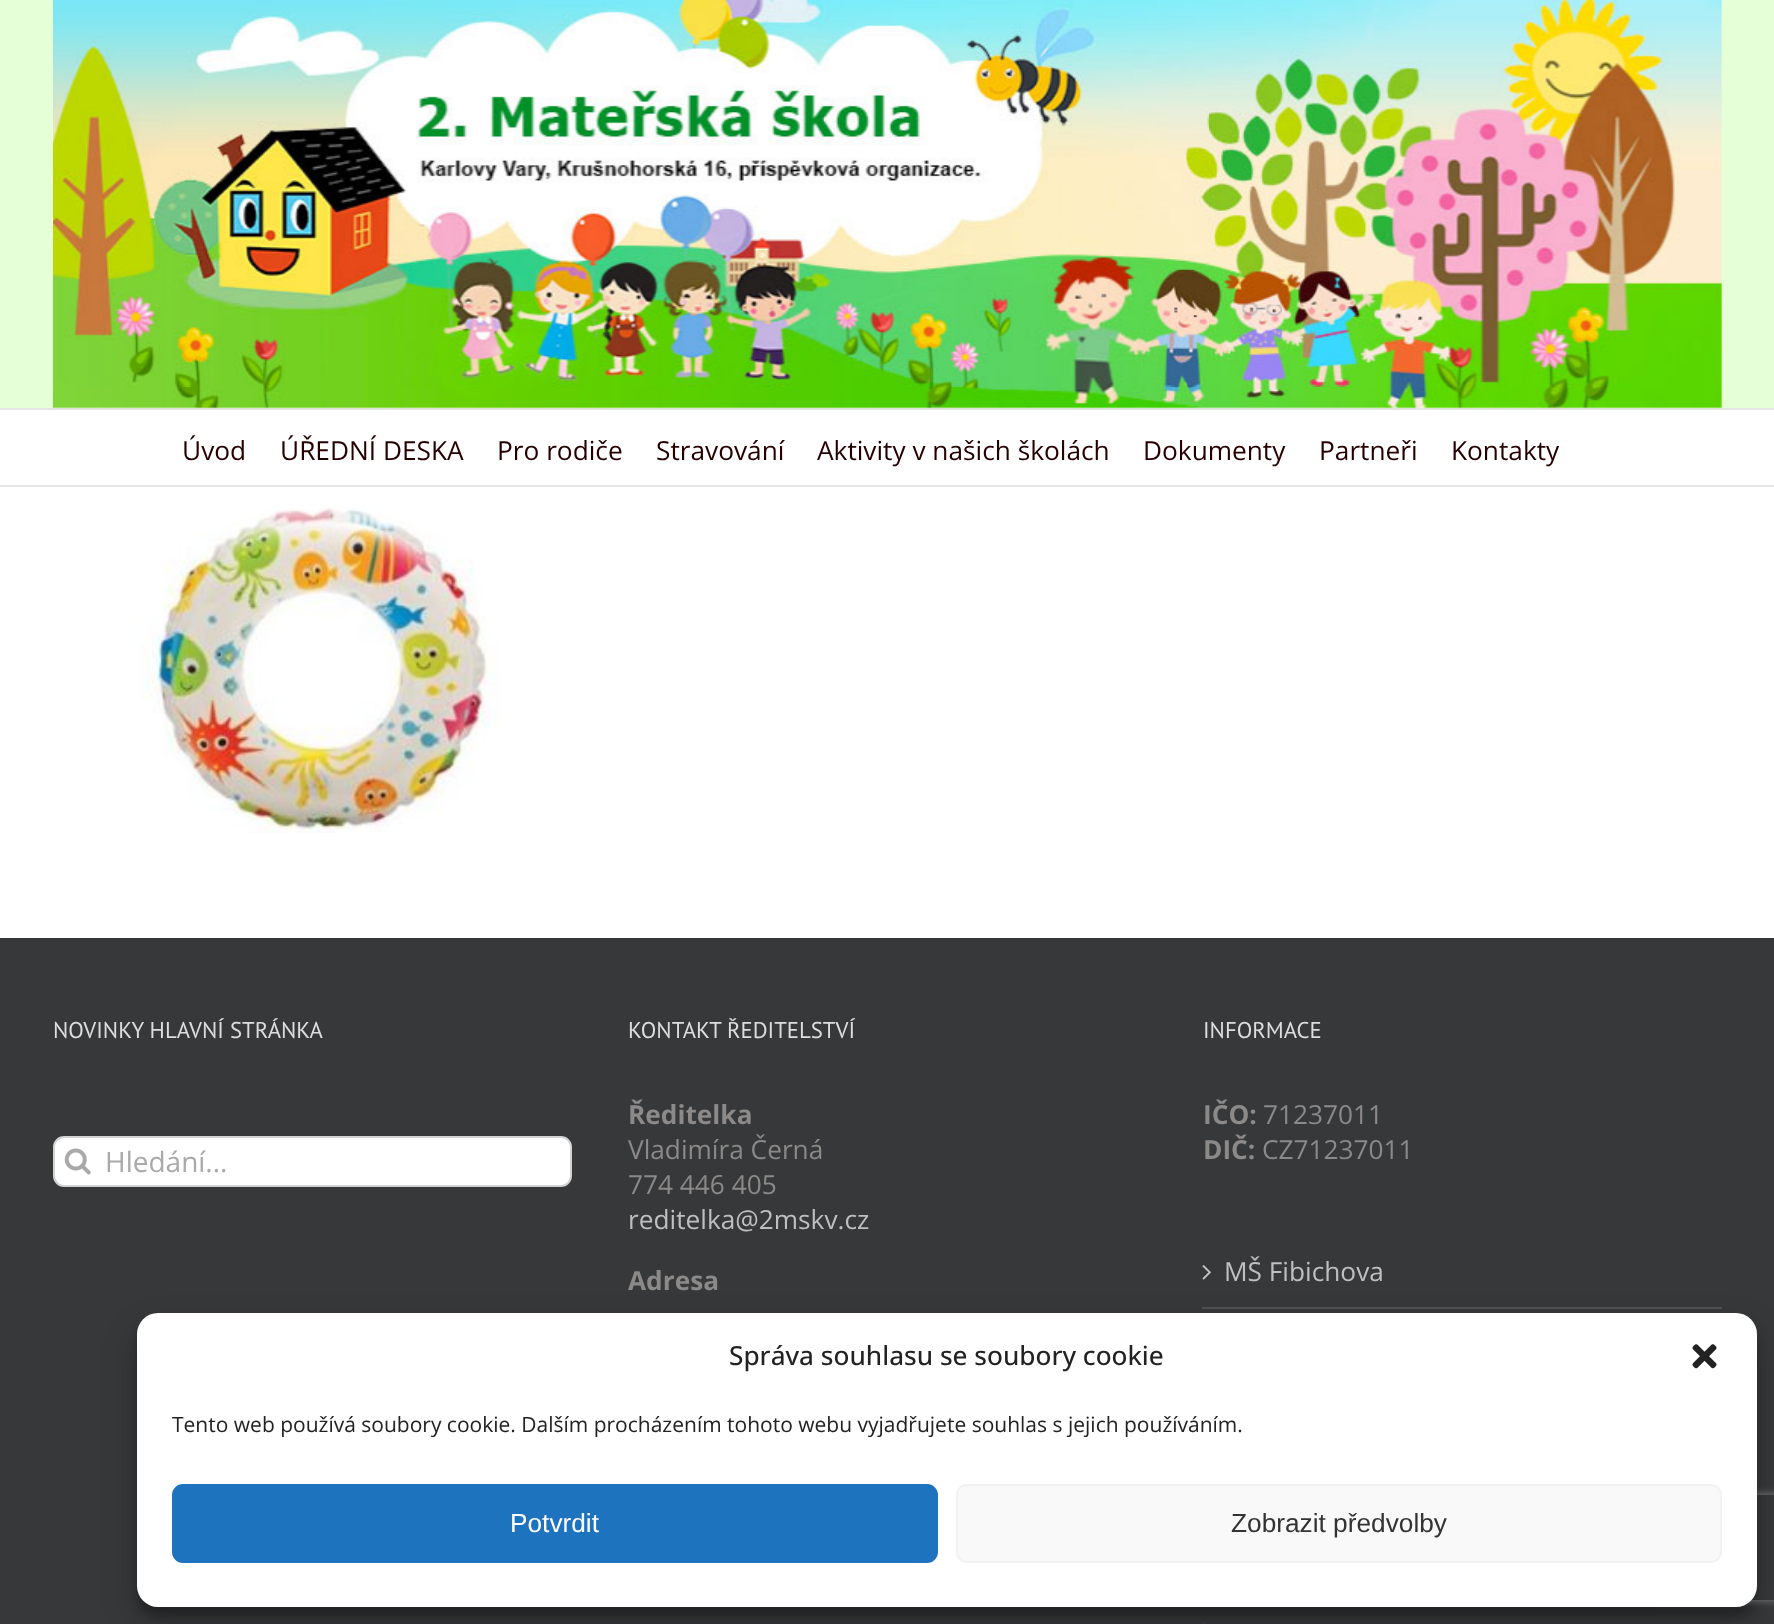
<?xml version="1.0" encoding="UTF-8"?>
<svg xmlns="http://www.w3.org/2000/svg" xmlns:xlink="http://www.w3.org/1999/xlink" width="1774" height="1624">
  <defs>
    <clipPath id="clip1"><rect x="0" y="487" width="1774" height="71" /></clipPath>
    <clipPath id="clip2"><path d="M 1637 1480 h 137 v 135 h -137 z m 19 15 h 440 c 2 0 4 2 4 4 v 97 c 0 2 -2 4 -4 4 h -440 c -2 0 -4 -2 -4 -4 v -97 c 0 -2 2 -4 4 -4 z" clip-rule="evenodd" /></clipPath>
  </defs>
  <rect width="100%" height="100%" fill="#ffffff" />
  <image x="137" y="504" width="363" height="329" xlink:href="image2.png" />
  <g clip-path="url(#clip1)">
    <rect x="35" y="445" width="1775" height="77" fill="#ffffff" filter="blur(17.5px)" />
  </g>
  <rect width="1774" height="408" fill="#e5ffd6" />
  <rect y="408" width="1774" height="2" fill="#e5e5e5" />
  <image x="53" y="0" width="1669" height="409" xlink:href="image1.png" />
  <rect y="485" width="1774" height="2" fill="#e5e5e5" />
  <rect y="938" width="1774" height="686" fill="#363839" />
  <rect x="54" y="1137" width="517" height="49" rx="10" fill="#ffffff" stroke="#d2d2d2" stroke-width="2" />
  <image x="64" y="1148" width="27" height="27" xlink:href="image3.png" />
  <rect x="1202" y="1307" width="520" height="2" fill="#505152" />
  <image x="1202" y="1265" width="9" height="15" xlink:href="image4.png" />
  <rect x="1203" y="1623" width="1" height="1" fill="#454748" />
  <rect x="137" y="1323" width="1620" height="294" rx="21" fill="#000000" fill-opacity="0.23" filter="blur(5px)" />
  <rect x="137" y="1330" width="1620" height="294" rx="21" fill="#000000" fill-opacity="0.19" filter="blur(17.5px)" />
  <g clip-path="url(#clip2)">
    <rect x="1652" y="1495" width="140" height="105" rx="4" fill="#808080" filter="blur(4.5px)" />
  </g>
  <rect x="137" y="1313" width="1620" height="294" rx="21" fill="#ffffff" />
  <image x="1692" y="1344" width="25" height="25" xlink:href="image5.png" />
  <rect x="173" y="1485" width="764" height="77" rx="10" fill="#1e73be" stroke="#1e73be" stroke-width="2" />
  <rect x="957" y="1485" width="764" height="77" rx="10" fill="#f9f9f9" stroke="#f2f2f2" stroke-width="2" />
  <text x="182" y="460" style="font-family: Open Sans; font-size: 26.25px; fill: #260000">Úvod</text>
  <text x="280" y="460" style="font-family: Open Sans; font-size: 26.25px; fill: #260000">ÚŘEDNÍ DESKA</text>
  <text x="497" y="460" style="font-family: Open Sans; font-size: 26.25px; fill: #260000">Pro rodiče</text>
  <text x="656" y="460" style="font-family: Open Sans; font-size: 26.25px; fill: #260000">Stravování</text>
  <text x="817" y="460" style="font-family: Open Sans; font-size: 26.25px; fill: #260000">Aktivity v našich školách</text>
  <text x="1143" y="460" style="font-family: Open Sans; font-size: 26.25px; fill: #260000">Dokumenty</text>
  <text x="1319" y="460" style="font-family: Open Sans; font-size: 26.25px; fill: #260000">Partneři</text>
  <text x="1451" y="460" style="font-family: Open Sans; font-size: 26.25px; fill: #260000">Kontakty</text>
  <text x="53" y="1038" style="font-family: PT Sans; font-size: 22.75px; fill: #dddddd">NOVINKY HLAVNÍ STRÁNKA</text>
  <text x="105" y="1172" style="font-family: Open Sans; font-size: 28px; fill: #aaa9a9">Hledání...</text>
  <text x="628" y="1038" style="font-family: PT Sans; font-size: 22.75px; fill: #dddddd">KONTAKT ŘEDITELSTVÍ</text>
  <text x="628" y="1124" style="font-family: Open Sans; font-size: 26.25px; font-weight: bold; fill: #8c8989">Ředitelka</text>
  <text x="628" y="1159" style="font-family: Open Sans; font-size: 26.25px; fill: #8c8989">Vladimíra Černá</text>
  <text x="628" y="1194" style="font-family: Open Sans; font-size: 26.25px; fill: #8c8989">774 446 405</text>
  <text x="628" y="1229" style="font-family: Open Sans; font-size: 26.25px; fill: #bfbfbf">reditelka@2mskv.cz</text>
  <text x="628" y="1290" style="font-family: Open Sans; font-size: 26.25px; font-weight: bold; fill: #8c8989">Adresa</text>
  <text x="1203" y="1038" style="font-family: PT Sans; font-size: 22.75px; fill: #dddddd">INFORMACE</text>
  <text x="1203" y="1124" style="font-family: Open Sans; font-size: 26.25px; font-weight: bold; fill: #8c8989">IČO:</text>
  <text x="1263" y="1124" style="font-family: Open Sans; font-size: 26.25px; fill: #8c8989">71237011</text>
  <text x="1203" y="1159" style="font-family: Open Sans; font-size: 26.25px; font-weight: bold; fill: #8c8989">DIČ:</text>
  <text x="1262" y="1159" style="font-family: Open Sans; font-size: 26.25px; fill: #8c8989">CZ71237011</text>
  <text x="1224" y="1281" style="font-family: Open Sans; font-size: 26.25px; fill: #bfbfbf">MŠ Fibichova</text>
  <text x="729" y="1365" style="font-family: Open Sans; font-size: 26.25px; font-weight: 500; fill: #222222">Správa souhlasu se soubory cookie</text>
  <text x="172" y="1432" style="font-family: Open Sans; font-size: 21px; fill: #222222">Tento web používá soubory cookie. Dalším procházením tohoto webu vyjadřujete souhlas s jejich používáním.</text>
  <text x="510" y="1532" style="font-family: Liberation Sans; font-size: 26.25px; fill: #ffffff">Potvrdit</text>
  <text x="1231" y="1532" style="font-family: Liberation Sans; font-size: 26.25px; fill: #333333">Zobrazit předvolby</text>
</svg>
